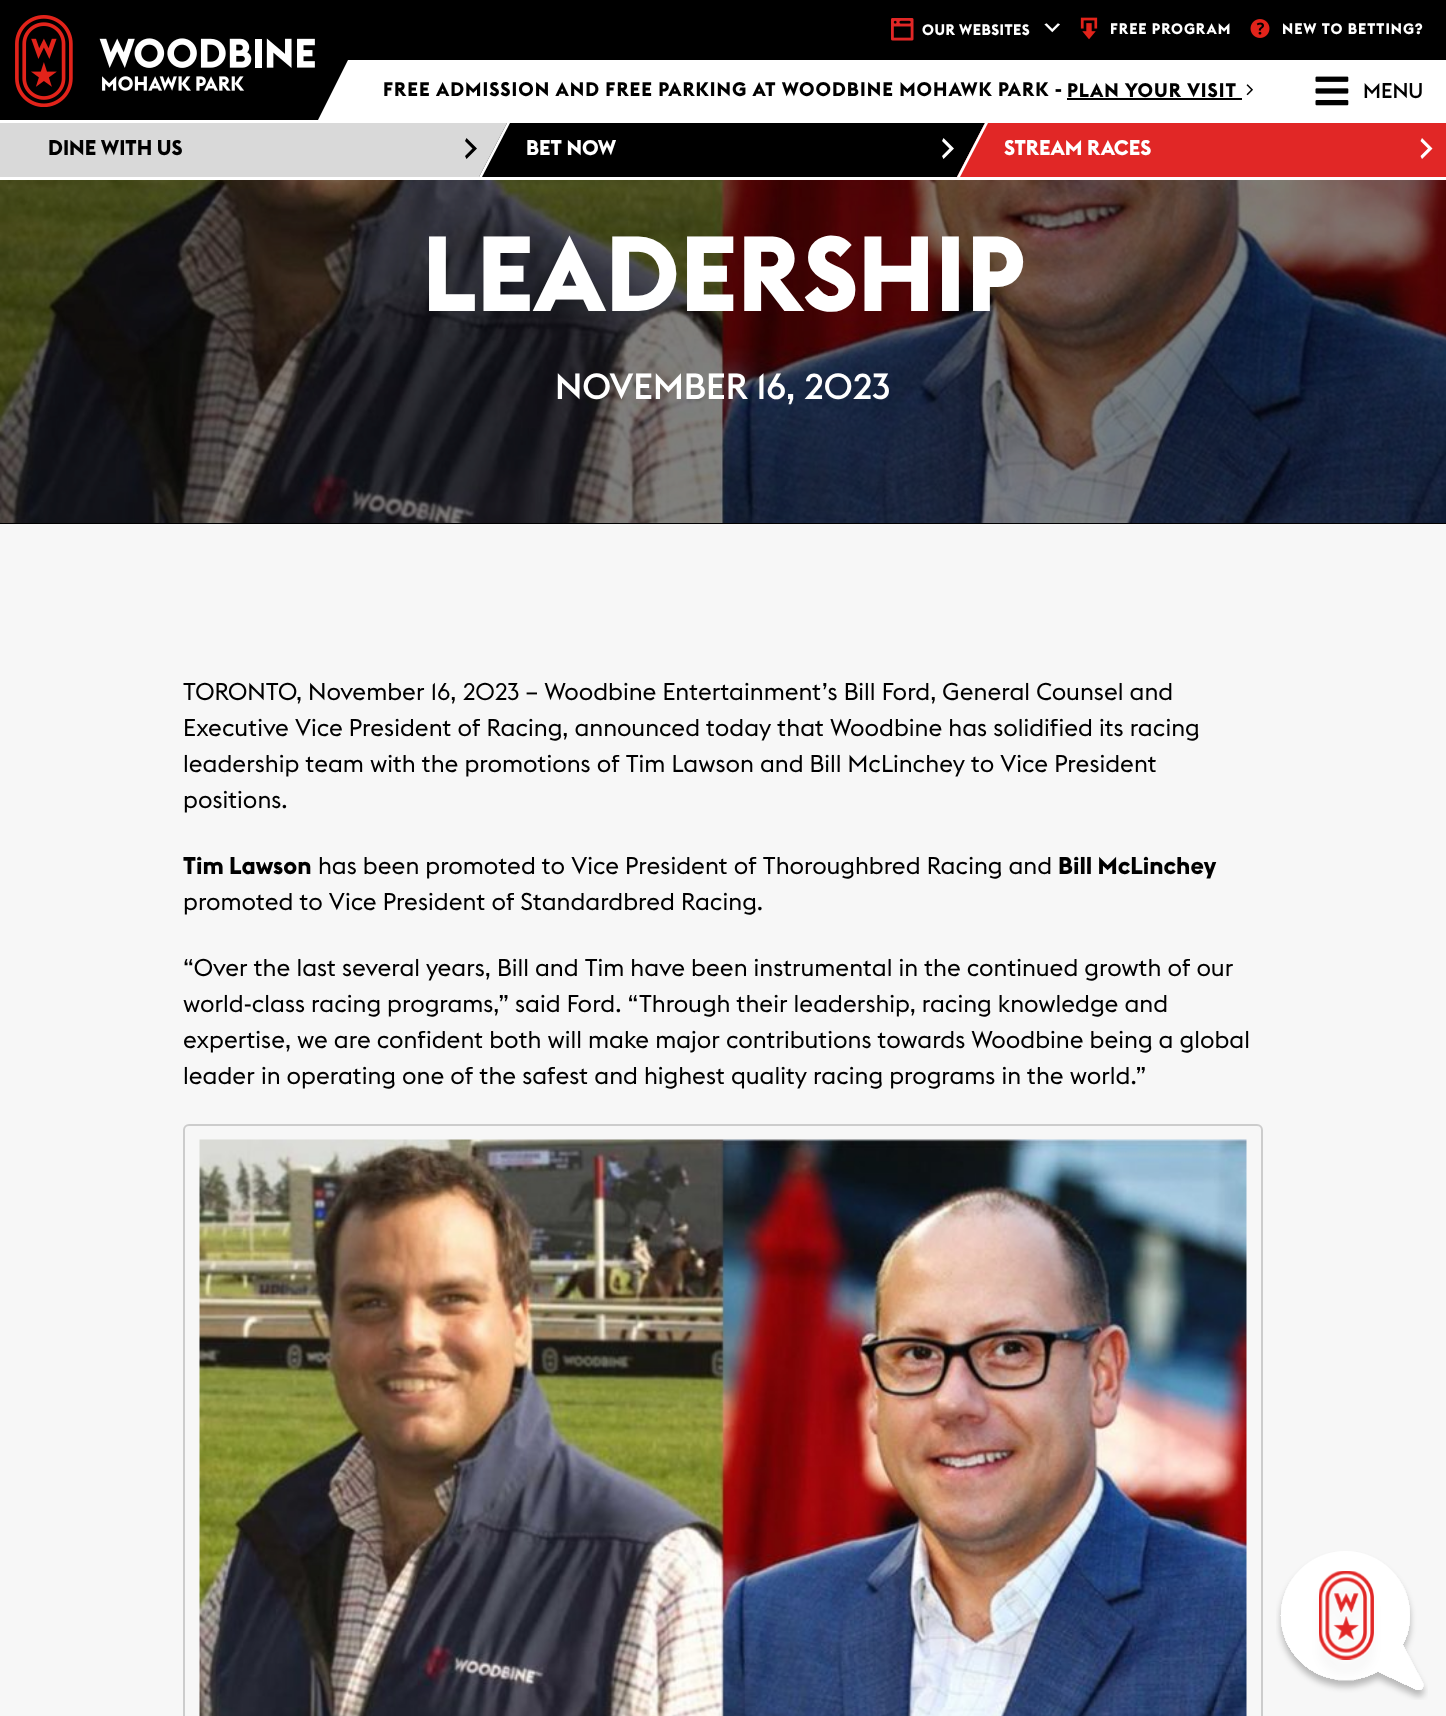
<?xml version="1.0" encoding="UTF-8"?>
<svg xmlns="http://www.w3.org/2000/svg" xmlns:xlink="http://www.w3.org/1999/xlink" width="1446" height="1716">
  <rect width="100%" height="100%" fill="#f7f7f7" />
  <rect width="1446" height="120" fill="#000000" />
  <image x="15" y="15" width="300" height="92" xlink:href="image1.png" />
  <image x="891" y="18" width="23" height="23" xlink:href="image2.png" />
  <image x="1044" y="23" width="16" height="10" xlink:href="image3.png" />
  <image x="1080" y="17" width="18" height="23" xlink:href="image4.png" />
  <image x="1250" y="19" width="20" height="19" xlink:href="image5.png" />
  <rect x="393" y="60" width="1053" height="60" fill="#ffffff" />
  <rect x="1067" y="98" width="175" height="2" fill="#000000" />
  <image x="1246" y="84" width="7" height="12" xlink:href="image6.png" />
  <path d="M 348 60 h 75 l -30 60 h -75 z" fill="#ffffff" />
  <image x="1315" y="76" width="34" height="30" xlink:href="image7.png" />
  <rect y="123" width="985" height="54" fill="#d9d9d9" />
  <rect y="120" width="1446" height="3" fill="#ffffff" />
  <rect y="177" width="1446" height="3" fill="#ffffff" />
  <path d="M 465 156 l 7.5 -7.5 l -7.5 -7.5 l 1.5 -3 l 10.5 10.5 l -10.5 10.5 z" fill="#000000" />
  <path d="M 507 123 h 478 l -28 54 h -478 z" fill="#000000" />
  <path d="M 507 123 h 3 l -28 54 h -3 z" fill="#ffffff" />
  <path d="M 942 156 l 7.5 -7.5 l -7.5 -7.5 l 1.5 -3 l 10.5 10.5 l -10.5 10.5 z" fill="#ffffff" />
  <path d="M 985 123 h 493 l -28 54 h -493 z" fill="#e12726" />
  <path d="M 985 123 h 3 l -28 54 h -3 z" fill="#ffffff" />
  <path d="M 1420.5 156 l 7.5 -7.5 l -7.5 -7.5 l 1.5 -3 l 10.5 10.5 l -10.5 10.5 z" fill="#ffffff" />
  <rect y="523" width="1446" height="1" fill="#000000" />
  <image x="0" y="180" width="1446" height="343" xlink:href="image8.png" />
  <rect x="184" y="1125" width="1078" height="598" rx="5" fill="none" stroke="#cccccc" stroke-width="2" />
  <image x="199" y="1139" width="1048" height="577" xlink:href="image9.png" />
  <image x="1276" y="1551" width="152" height="149" xlink:href="image10.png" />
  <text x="922" y="35" style="font-family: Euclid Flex; font-size: 15px; font-weight: bold; letter-spacing: 0.5px; fill: #ffffff">OUR WEBSITES</text>
  <text x="1110" y="34" style="font-family: Euclid Flex; font-size: 15px; font-weight: bold; letter-spacing: 1px; fill: #ffffff">FREE PROGRAM</text>
  <text x="1282" y="34" style="font-family: Euclid Flex; font-size: 15px; font-weight: bold; letter-spacing: 1px; fill: #ffffff">NEW TO BETTING?</text>
  <text x="383" y="96" style="font-family: Euclid Flex; font-size: 19.5px; font-weight: bold; letter-spacing: 1px; fill: #000000">FREE ADMISSION AND FREE PARKING AT WOODBINE MOHAWK PARK -</text>
  <text x="1067" y="97" style="font-family: Euclid Flex; font-size: 19.5px; font-weight: bold; letter-spacing: 1px; fill: #000000">PLAN YOUR VISIT</text>
  <text x="1363" y="98" style="font-family: Euclid Flex; font-size: 21px; font-weight: 500; fill: #000000">MENU</text>
  <text x="48" y="155" style="font-family: Euclid Flex; font-size: 21px; font-weight: bold; fill: #000000">DINE WITH US</text>
  <text x="526" y="155" style="font-family: Euclid Flex; font-size: 21px; font-weight: bold; fill: #ffffff">BET NOW</text>
  <text x="1004" y="155" style="font-family: Euclid Flex; font-size: 21px; font-weight: bold; fill: #ffffff">STREAM RACES</text>
  <text x="422" y="311" style="font-family: Euclid Flex; font-size: 105px; font-weight: bold; fill: #ffffff">LEADERSHIP</text>
  <text x="555" y="399" style="font-family: Euclid Flex; font-size: 36px; font-weight: 500; fill: #ffffff">NOVEMBER 16, 2023</text>
  <text x="183" y="700" style="font-family: Euclid Flex; font-size: 24px; fill: #000000">TORONTO, November 16, 2023 – Woodbine Entertainment’s Bill Ford, General Counsel and</text>
  <text x="183" y="736" style="font-family: Euclid Flex; font-size: 24px; fill: #000000">Executive Vice President of Racing, announced today that Woodbine has solidified its racing</text>
  <text x="183" y="772" style="font-family: Euclid Flex; font-size: 24px; fill: #000000">leadership team with the promotions of Tim Lawson and Bill McLinchey to Vice President</text>
  <text x="183" y="808" style="font-family: Euclid Flex; font-size: 24px; fill: #000000">positions.</text>
  <text x="183" y="874" style="font-family: Euclid Flex; font-size: 24px; font-weight: bold; fill: #000000">Tim Lawson</text>
  <text x="318" y="874" style="font-family: Euclid Flex; font-size: 24px; fill: #000000">has been promoted to Vice President of Thoroughbred Racing and</text>
  <text x="1058" y="874" style="font-family: Euclid Flex; font-size: 24px; font-weight: bold; fill: #000000">Bill McLinchey</text>
  <text x="183" y="910" style="font-family: Euclid Flex; font-size: 24px; fill: #000000">promoted to Vice President of Standardbred Racing.</text>
  <text x="183" y="976" style="font-family: Euclid Flex; font-size: 24px; fill: #000000">“Over the last several years, Bill and Tim have been instrumental in the continued growth of our</text>
  <text x="183" y="1012" style="font-family: Euclid Flex; font-size: 24px; fill: #000000">world-class racing programs,” said Ford. “Through their leadership, racing knowledge and</text>
  <text x="183" y="1048" style="font-family: Euclid Flex; font-size: 24px; fill: #000000">expertise, we are confident both will make major contributions towards Woodbine being a global</text>
  <text x="183" y="1084" style="font-family: Euclid Flex; font-size: 24px; fill: #000000">leader in operating one of the safest and highest quality racing programs in the world.”</text>
</svg>
